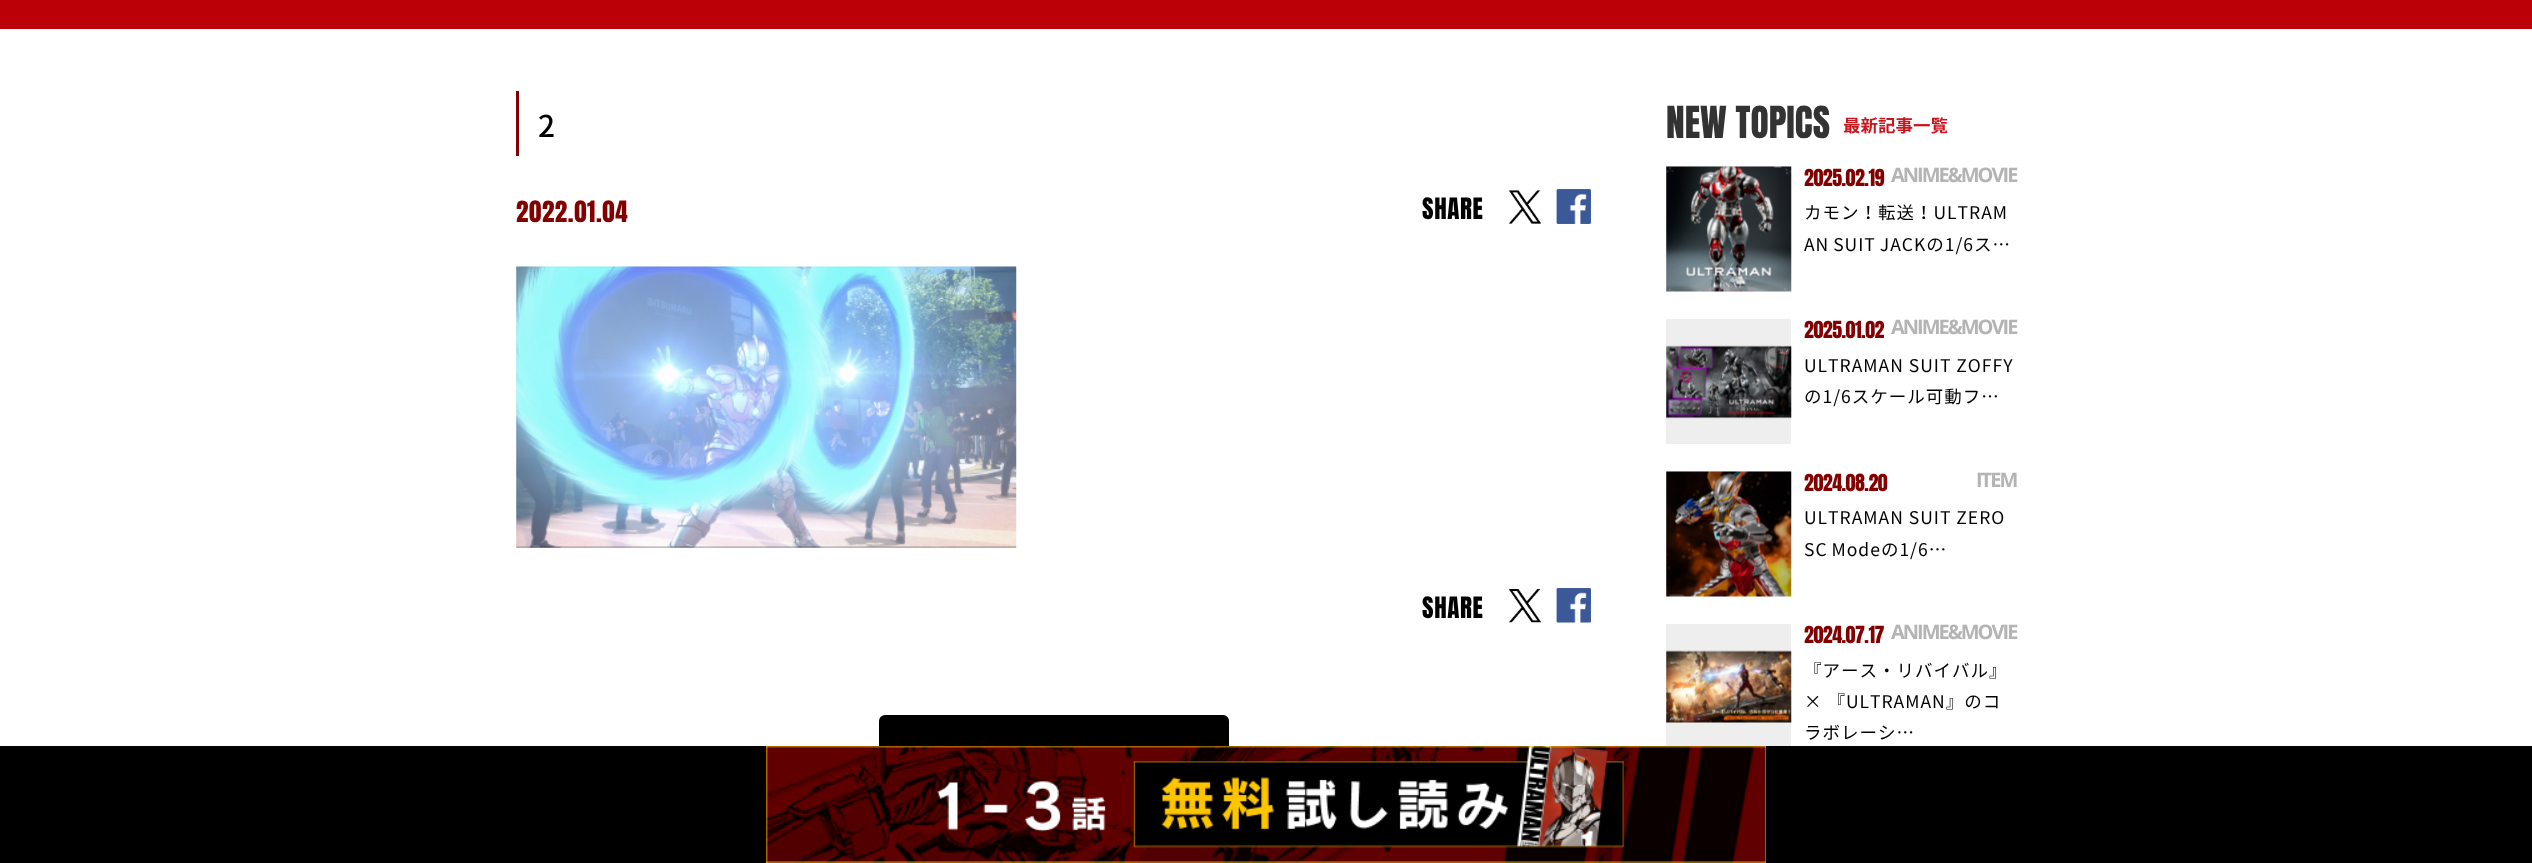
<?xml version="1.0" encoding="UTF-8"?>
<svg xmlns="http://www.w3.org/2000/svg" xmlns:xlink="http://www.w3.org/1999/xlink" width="2532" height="863">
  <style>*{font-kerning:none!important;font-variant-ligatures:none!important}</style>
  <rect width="100%" height="100%" fill="#ffffff" />
  <rect width="2532" height="29" fill="#bb0007" />
  <rect x="516" y="91" width="3" height="65" fill="#830000" />
  <image x="1509" y="190" width="32" height="34" xlink:href="image1.png" />
  <image x="1556" y="189" width="35" height="35" xlink:href="image2.png" />
  <image x="516" y="266" width="501" height="282" xlink:href="image3.png" />
  <image x="1509" y="589" width="32" height="34" xlink:href="image4.png" />
  <image x="1556" y="588" width="35" height="35" xlink:href="image5.png" />
  <rect x="879" y="715" width="350" height="65" rx="6" fill="#000000" />
  <rect x="1666" y="166" width="125" height="125" fill="#eeeeee" />
  <image x="1666" y="166" width="126" height="126" xlink:href="image6.png" />
  <rect x="1666" y="319" width="125" height="125" fill="#eeeeee" />
  <image x="1666" y="345" width="126" height="74" xlink:href="image7.png" />
  <rect x="1666" y="471" width="125" height="125" fill="#eeeeee" />
  <image x="1666" y="471" width="126" height="126" xlink:href="image8.png" />
  <rect x="1666" y="624" width="125" height="122" fill="#eeeeee" />
  <image x="1666" y="650" width="126" height="73" xlink:href="image9.png" />
  <rect y="746" width="2532" height="117" fill="#000000" />
  <image x="766" y="746" width="1000" height="117" xlink:href="image10.png" />
  <text x="538" y="137" style="font-family: Noto Sans JP; font-size: 30px; font-weight: 500; fill: #000000">2</text>
  <text x="516" y="222" style="font-family: Anton; font-size: 25px; letter-spacing: 0.6px; fill: #830000">2022.01.04</text>
  <text x="1422" y="219" style="font-family: Anton; font-size: 25px; letter-spacing: 0.6px; fill: #000000">SHARE</text>
  <text x="1422" y="618" style="font-family: Anton; font-size: 25px; letter-spacing: 0.6px; fill: #000000">SHARE</text>
  <text x="1666" y="138" style="font-family: Anton; font-size: 37.5px; fill: #333333">NEW TOPICS</text>
  <text x="1843" y="132" style="font-family: Noto Sans JP; font-size: 17.5px; font-weight: bold; fill: #c8161e">最新記事一覧</text>
  <text x="1804" y="186" style="font-family: Anton; font-size: 20px; letter-spacing: -0.5px; fill: #830000">2025.02.19</text>
  <text x="1891" y="182" style="font-family: Open Sans; font-size: 20px; font-weight: bold; letter-spacing: -2px; fill: #b4b4b4">ANIME&amp;MOVIE</text>
  <text x="1804" y="219" style="font-family: Noto Sans JP; font-size: 17.5px; letter-spacing: 1px; fill: #000000">カモン！転送！ULTRAM</text>
  <text x="1804" y="251" word-spacing="-1" style="font-family: Noto Sans JP; font-size: 17.5px; letter-spacing: 1px; fill: #000000">AN SUIT JACKの1/6ス…</text>
  <text x="1804" y="338" style="font-family: Anton; font-size: 20px; letter-spacing: -0.5px; fill: #830000">2025.01.02</text>
  <text x="1891" y="334" style="font-family: Open Sans; font-size: 20px; font-weight: bold; letter-spacing: -2px; fill: #b4b4b4">ANIME&amp;MOVIE</text>
  <text x="1804" y="372" style="font-family: Noto Sans JP; font-size: 17.5px; letter-spacing: 1px; fill: #000000">ULTRAMAN SUIT ZOFFY</text>
  <text x="1804" y="403" style="font-family: Noto Sans JP; font-size: 17.5px; letter-spacing: 1px; fill: #000000">の1/6スケール可動フ…</text>
  <text x="1804" y="491" style="font-family: Anton; font-size: 20px; letter-spacing: -0.5px; fill: #830000">2024.08.20</text>
  <text x="1976" y="487" style="font-family: Open Sans; font-size: 20px; font-weight: bold; letter-spacing: -2px; fill: #b4b4b4">ITEM</text>
  <text x="1804" y="524" style="font-family: Noto Sans JP; font-size: 17.5px; letter-spacing: 1px; fill: #000000">ULTRAMAN SUIT ZERO</text>
  <text x="1804" y="556" word-spacing="-1" style="font-family: Noto Sans JP; font-size: 17.5px; letter-spacing: 1px; fill: #000000">SC Modeの1/6…</text>
  <text x="1804" y="643" style="font-family: Anton; font-size: 20px; letter-spacing: -0.5px; fill: #830000">2024.07.17</text>
  <text x="1891" y="639" style="font-family: Open Sans; font-size: 20px; font-weight: bold; letter-spacing: -2px; fill: #b4b4b4">ANIME&amp;MOVIE</text>
  <text x="1804" y="677" style="font-family: Noto Sans JP; font-size: 17.5px; letter-spacing: 1px; fill: #000000">『アース・リバイバル』</text>
  <text x="1804" y="708" style="font-family: Noto Sans JP; font-size: 17.5px; letter-spacing: 1px; fill: #000000">× 『ULTRAMAN』のコ</text>
  <text x="1804" y="739" style="font-family: Noto Sans JP; font-size: 17.5px; letter-spacing: 1px; fill: #000000">ラボレーシ…</text>
</svg>
